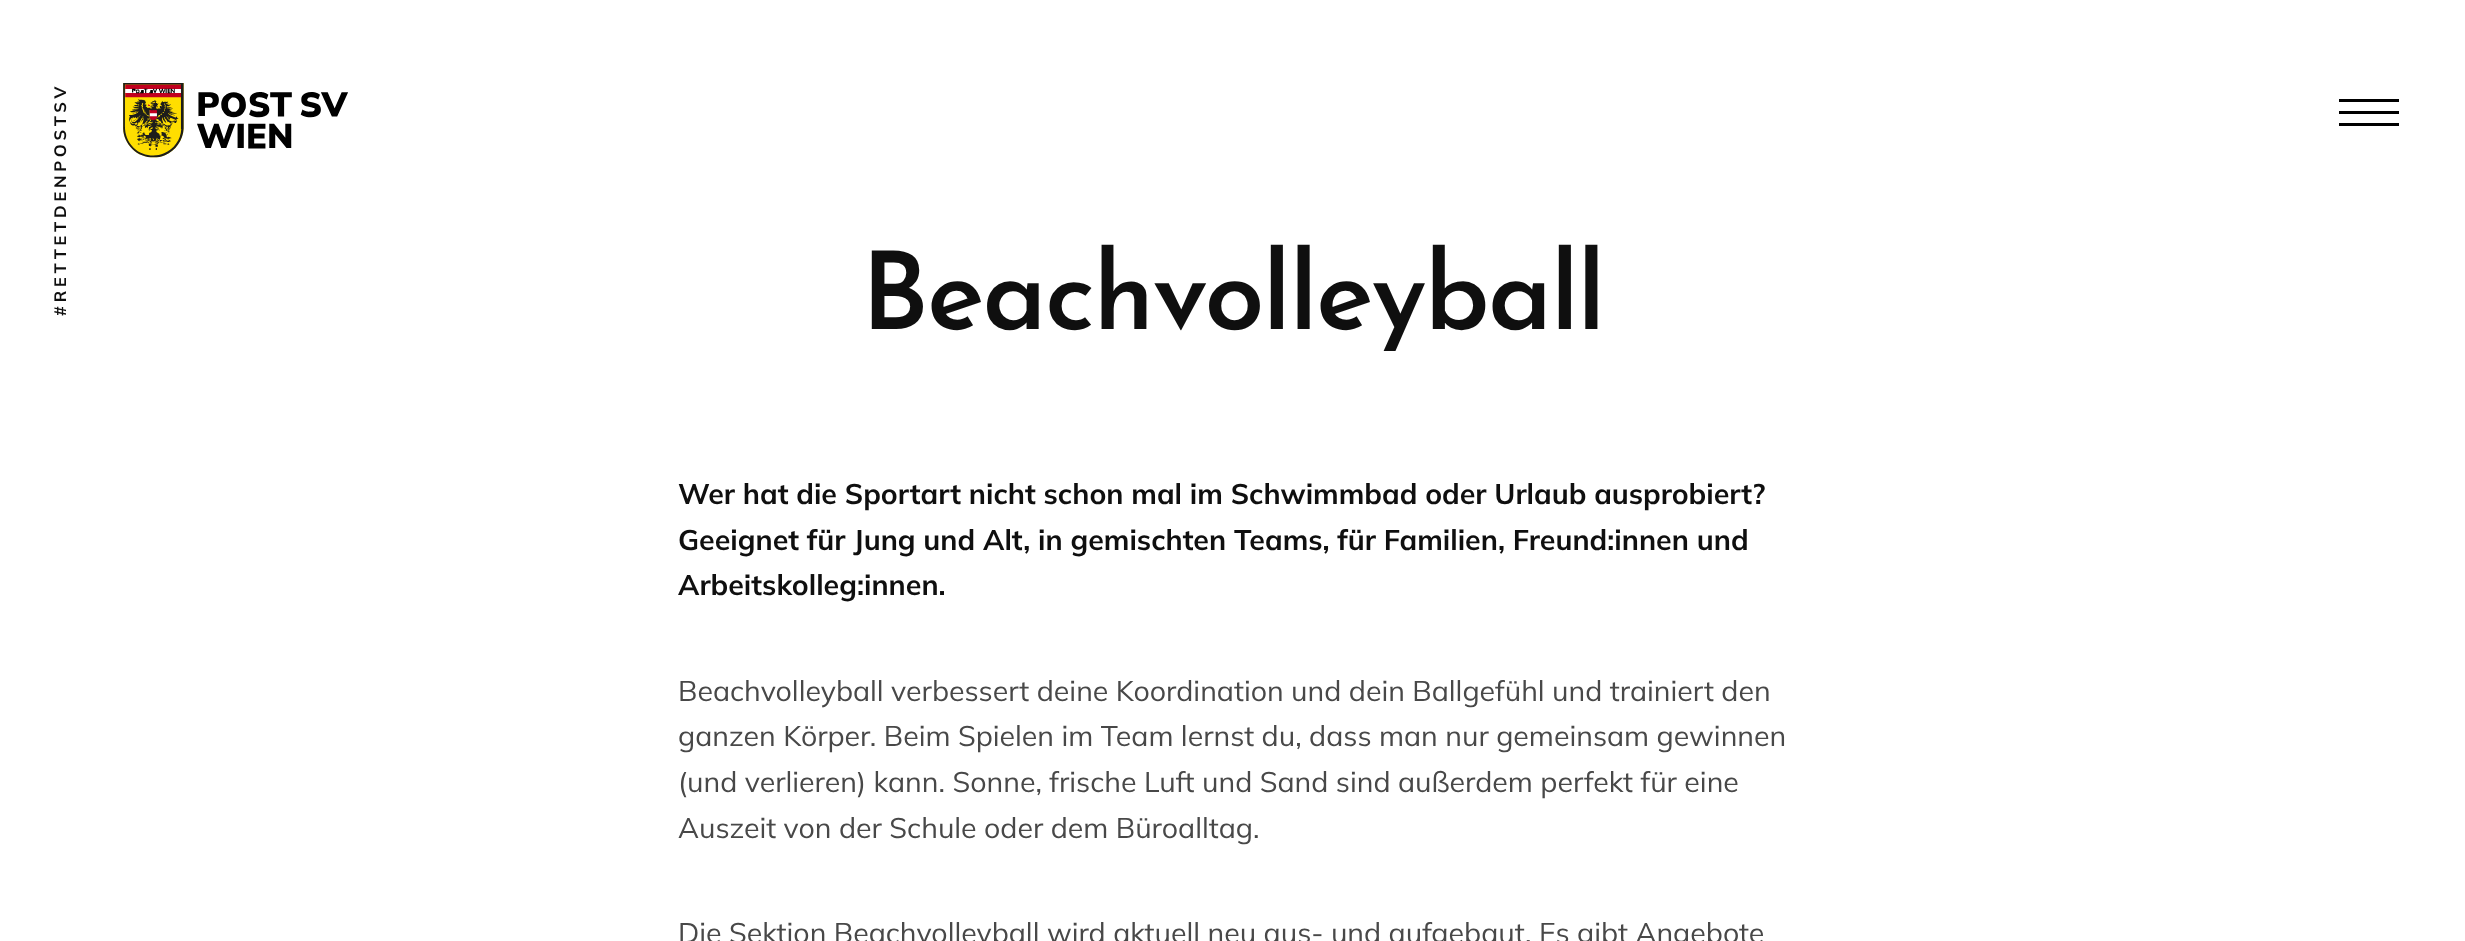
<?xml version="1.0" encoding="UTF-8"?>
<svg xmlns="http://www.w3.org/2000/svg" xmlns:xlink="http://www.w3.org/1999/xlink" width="2465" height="941">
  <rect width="100%" height="100%" fill="#ffffff" />
  <image x="123" y="83" width="225" height="75" xlink:href="image1.png" />
  <rect x="2339" y="99" width="60" height="3" fill="#000000" />
  <rect x="2339" y="111" width="60" height="3" fill="#000000" />
  <rect x="2339" y="123" width="60" height="3" fill="#000000" />
  <text x="66" y="316" transform="rotate(-90 66 316)" style="font-family: Mulish; font-size: 16.5px; font-weight: bold; letter-spacing: 3.75px; fill: #0f0f0f">#RETTETDENPOSTSV</text>
  <text x="861" y="329" style="font-family: Josefin Sans; font-size: 108px; font-weight: 100; letter-spacing: -2px; fill: #0f0f0f">Beachvolleyball</text>
  <text x="678" y="504" style="font-family: Mulish; font-size: 28.5px; font-weight: bold; fill: #0f0f0f">Wer hat die Sportart nicht schon mal im Schwimmbad oder Urlaub ausprobiert?</text>
  <text x="678" y="550" style="font-family: Mulish; font-size: 28.5px; font-weight: bold; fill: #0f0f0f">Geeignet für Jung und Alt, in gemischten Teams, für Familien, Freund:innen und</text>
  <text x="678" y="595" style="font-family: Mulish; font-size: 28.5px; font-weight: bold; fill: #0f0f0f">Arbeitskolleg:innen.</text>
  <text x="678" y="701" style="font-family: Mulish; font-size: 28.5px; fill: #484848">Beachvolleyball verbessert deine Koordination und dein Ballgefühl und trainiert den</text>
  <text x="678" y="746" style="font-family: Mulish; font-size: 28.5px; fill: #484848">ganzen Körper. Beim Spielen im Team lernst du, dass man nur gemeinsam gewinnen</text>
  <text x="678" y="792" style="font-family: Mulish; font-size: 28.5px; fill: #484848">(und verlieren) kann. Sonne, frische Luft und Sand sind außerdem perfekt für eine</text>
  <text x="678" y="838" style="font-family: Mulish; font-size: 28.5px; fill: #484848">Auszeit von der Schule oder dem Büroalltag.</text>
  <text x="678" y="943" style="font-family: Mulish; font-size: 28.5px; fill: #484848">Die Sektion Beachvolleyball wird aktuell neu aus- und aufgebaut. Es gibt Angebote</text>
</svg>
